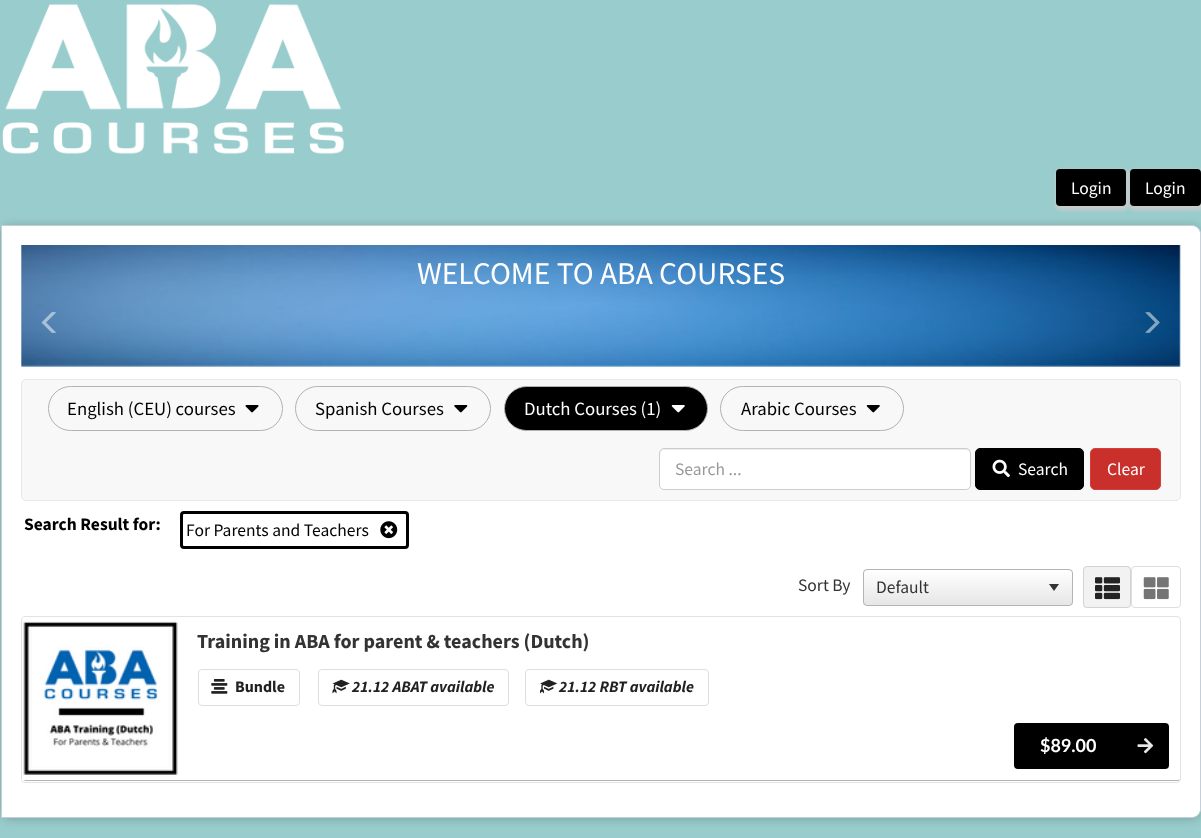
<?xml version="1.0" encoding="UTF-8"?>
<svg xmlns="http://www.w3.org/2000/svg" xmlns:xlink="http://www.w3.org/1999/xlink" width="1201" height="838">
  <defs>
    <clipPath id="clip1"><rect x="863" y="569" width="210" height="37" rx="4" /></clipPath>
    <linearGradient id="g1" gradientUnits="userSpaceOnUse" x1="968" y1="570" x2="968" y2="605"><stop offset="0" stop-color="#ffffff" /><stop offset="1" stop-color="#e6e6e6" /></linearGradient>
  </defs>
  <rect width="100%" height="100%" fill="#99cccc" />
  <image x="2" y="4" width="342" height="150" xlink:href="image1.png" />
  <rect x="1056" y="170" width="73" height="40" rx="5" fill="#cccccc" filter="blur(2px)" />
  <rect x="1056" y="169" width="70" height="37" rx="4" fill="#000000" />
  <rect x="1130" y="170" width="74" height="40" rx="5" fill="#cccccc" filter="blur(2px)" />
  <rect x="1130" y="169" width="71" height="37" rx="4" fill="#000000" />
  <rect x="1" y="226" width="1200" height="593" rx="9" fill="#000000" fill-opacity="0.2" filter="blur(5px)" />
  <path d="M 1.5 225.5 h 1190.5 c 4.5 0 8.5 4 8.5 8.5 v 575 c 0 4.5 -4 8.5 -8.5 8.5 h -1190.5 z" fill="#ffffff" stroke="#c5cfd9" />
  <image x="21" y="245" width="1160" height="122" xlink:href="image2.png" />
  <image x="41" y="312" width="15" height="21" xlink:href="image3.png" />
  <image x="1145" y="312" width="15" height="21" xlink:href="image4.png" />
  <rect x="21.5" y="379.5" width="1159" height="121" rx="4.5" fill="#f8f8f8" stroke="#e7e7e7" />
  <rect x="48.5" y="386.5" width="234" height="44" rx="22" fill="none" stroke="#b2b2b2" />
  <image x="245" y="405" width="14" height="8" xlink:href="image5.png" />
  <rect x="295.5" y="386.5" width="195" height="44" rx="22" fill="none" stroke="#b2b2b2" />
  <image x="454" y="405" width="14" height="8" xlink:href="image6.png" />
  <rect x="504.5" y="386.5" width="203" height="44" rx="22" fill="#000000" stroke="#b2b2b2" />
  <image x="671" y="405" width="14" height="8" xlink:href="image7.png" />
  <rect x="720.5" y="386.5" width="183" height="44" rx="22" fill="none" stroke="#b2b2b2" />
  <image x="866" y="405" width="14" height="8" xlink:href="image8.png" />
  <rect x="659" y="448" width="312" height="42" rx="5" fill="#ffffff" />
  <path d="M 664 450 h 302 c 2 0 4 2 4 4 c 0 -3 -1 -5 -4 -5 h -302 l -3 1 c -1 1 -1 3 -1 4 c 0 -2 2 -4 4 -4 z" fill="#ececec" />
  <rect x="659.5" y="448.5" width="311" height="41" rx="4.5" fill="none" stroke="#cccccc" />
  <rect x="975.5" y="448.5" width="108" height="41" rx="4.5" fill="#000000" stroke="#000000" />
  <image x="992" y="459" width="18" height="19" xlink:href="image9.png" />
  <rect x="1090.5" y="448.5" width="70" height="41" rx="4.5" fill="#c9302c" stroke="#d43f3a" />
  <rect x="181.5" y="512.5" width="226" height="35" rx="2.5" fill="none" stroke="#000000" stroke-width="3" />
  <image x="380" y="521" width="18" height="18" xlink:href="image10.png" />
  <g clip-path="url(#clip1)">
    <rect x="863" y="570" width="210" height="35" fill="url(#g1)" />
  </g>
  <rect x="863.5" y="569.5" width="209" height="36" rx="3.5" fill="none" stroke="#b3b3b3" />
  <path d="M 1054 591 l -5 -7 h 10 z" fill="#333333" />
  <rect x="1083" y="566" width="48" height="42" rx="4" fill="#f2f2f2" />
  <rect x="1083.5" y="566.5" width="47" height="41" rx="3.5" fill="none" stroke="#222426" stroke-opacity="0.15" />
  <image x="1095" y="577" width="25" height="23" xlink:href="image11.png" />
  <rect x="1131.5" y="566.5" width="49" height="41" rx="3.5" fill="none" stroke="#dedede" />
  <image x="1143" y="577" width="26" height="23" xlink:href="image12.png" />
  <path d="M 23 779 l 2 2 h 1153 c 1 0 2 -1 2 -3 c 0 1 -1 2 -2 2 h -1153 z" fill="#b3b3b3" />
  <rect x="21.5" y="616.5" width="1159" height="166" rx="3.5" fill="none" stroke="#e3e3e3" />
  <image x="22" y="617" width="156" height="163" xlink:href="image13.png" />
  <rect x="198.5" y="669.5" width="101" height="36" rx="3.5" fill="none" stroke="#dedede" />
  <image x="211" y="679" width="17" height="15" xlink:href="image14.png" />
  <rect x="318.5" y="669.5" width="190" height="36" rx="3.5" fill="none" stroke="#dedede" />
  <image x="332" y="679" width="18" height="15" xlink:href="image15.png" />
  <rect x="525.5" y="669.5" width="183" height="36" rx="3.5" fill="none" stroke="#dedede" />
  <image x="540" y="679" width="18" height="15" xlink:href="image16.png" />
  <rect x="1014" y="723" width="155" height="46" rx="4" fill="#000000" />
  <rect x="1166" y="723" width="3" height="46" fill="#000000" fill-opacity="0.05" />
  <image x="1137" y="738" width="17" height="16" xlink:href="image17.png" />
  <text x="1071" y="194" style="font-family: Source Sans Pro; font-size: 17.5px; fill: #ffffff">Login</text>
  <text x="1145" y="194" style="font-family: Source Sans Pro; font-size: 17.5px; fill: #ffffff">Login</text>
  <text x="417" y="284" style="font-family: Source Sans Pro; font-size: 31.5px; fill: #ffffff">WELCOME TO ABA COURSES</text>
  <text x="67" y="415" style="font-family: Source Sans Pro; font-size: 18.75px; fill: #000000">English (CEU) courses</text>
  <text x="315" y="415" style="font-family: Source Sans Pro; font-size: 18.75px; fill: #000000">Spanish Courses</text>
  <text x="524" y="415" style="font-family: Source Sans Pro; font-size: 18.75px; fill: #ffffff">Dutch Courses (1)</text>
  <text x="741" y="415" style="font-family: Source Sans Pro; font-size: 18.75px; fill: #000000">Arabic Courses</text>
  <text x="675" y="475" style="font-family: Source Sans Pro; font-size: 17.5px; fill: #999999">Search ...</text>
  <text x="1018" y="475" style="font-family: Source Sans Pro; font-size: 17.5px; fill: #ffffff">Search</text>
  <text x="1107" y="475" style="font-family: Source Sans Pro; font-size: 17.5px; fill: #ffffff">Clear</text>
  <text x="24" y="530" style="font-family: Source Sans Pro; font-size: 17.5px; font-weight: bold; fill: #000000">Search Result for:</text>
  <text x="186" y="536" style="font-family: Source Sans Pro; font-size: 17.5px; fill: #000000">For Parents and Teachers</text>
  <text x="798" y="591" style="font-family: Source Sans Pro; font-size: 17.5px; fill: #333333">Sort By</text>
  <text x="876" y="593" style="font-family: Source Sans Pro; font-size: 17.5px; fill: #333333">Default</text>
  <text x="197" y="648" style="font-family: Source Sans Pro; font-size: 20px; font-weight: bold; fill: #333333">Training in ABA for parent &amp; teachers (Dutch)</text>
  <text x="235" y="692" style="font-family: Source Sans Pro; font-size: 16px; font-weight: bold; fill: #212121">Bundle</text>
  <text x="352" y="692" style="font-family: Source Sans Pro; font-size: 16px; font-weight: bold; font-style: italic; fill: #212121">21.12 ABAT available</text>
  <text x="559" y="692" style="font-family: Source Sans Pro; font-size: 16px; font-weight: bold; font-style: italic; fill: #212121">21.12 RBT available</text>
  <text x="1040" y="752" style="font-family: Lato; font-size: 18px; font-weight: bold; fill: #ffffff">$89.00</text>
</svg>
